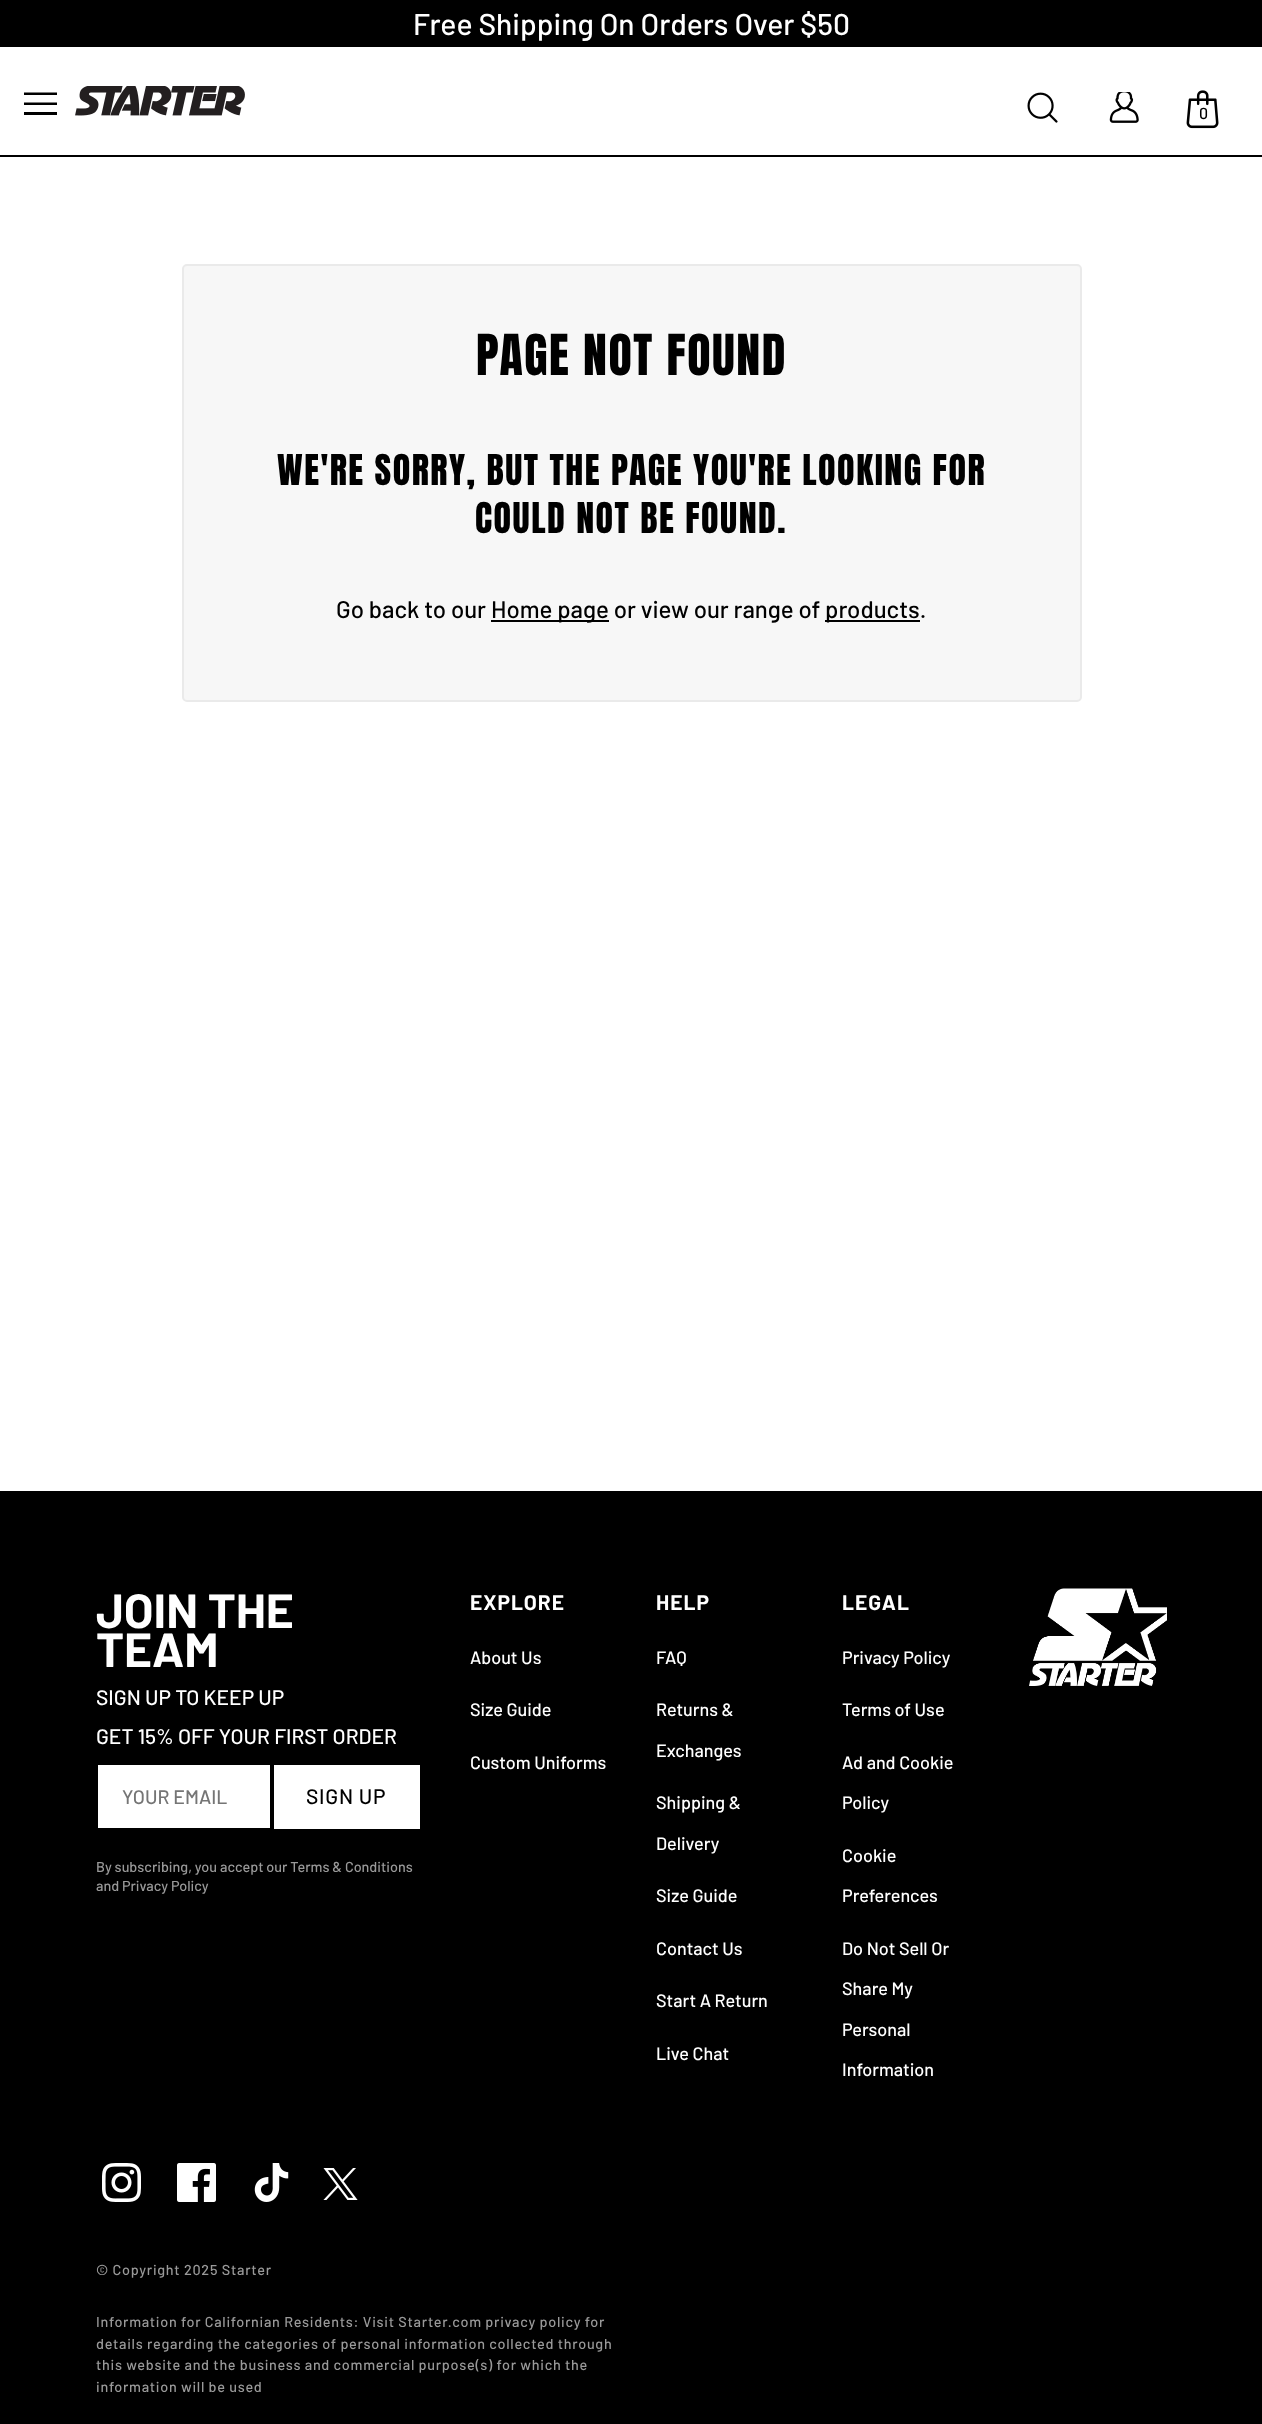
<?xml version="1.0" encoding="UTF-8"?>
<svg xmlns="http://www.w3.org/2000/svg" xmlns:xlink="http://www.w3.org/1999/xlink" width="1262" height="2424">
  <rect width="100%" height="100%" fill="#ffffff" />
  <rect width="1262" height="47" fill="#000000" />
  <rect y="155" width="1262" height="2" fill="#000000" />
  <path d="M 24 95 v -2.5 h 33 v 2.5 z m 0 10 v -2.5 h 33 v 2.5 z m 0 10 v -3 h 33 v 3 z" fill="#000000" />
  <image x="75" y="86" width="170" height="30" xlink:href="image1.png" />
  <image x="1027" y="92" width="31" height="31" xlink:href="image2.png" />
  <image x="1109" y="92" width="30" height="31" xlink:href="image3.png" />
  <rect x="183" y="265" width="898" height="436" rx="4" fill="#f7f7f7" stroke="#eaeaea" stroke-width="2" />
  <rect x="491" y="620" width="118" height="2" fill="#000000" />
  <rect x="825" y="620" width="95" height="2" fill="#000000" />
  <rect y="1491" width="1262" height="933" fill="#000000" />
  <rect x="98" y="1765" width="172" height="63" fill="#ffffff" />
  <rect x="274" y="1765" width="146" height="64" fill="#ffffff" />
  <image x="1029" y="1588" width="138" height="98" xlink:href="image5.png" />
  <image x="102" y="2163" width="39" height="39" xlink:href="image6.png" />
  <image x="177" y="2163" width="39" height="39" xlink:href="image7.png" />
  <image x="254" y="2163" width="35" height="39" xlink:href="image8.png" />
  <image x="323" y="2168" width="35" height="32" xlink:href="image9.png" />
  <text x="413" y="35" style="font-family: Barlow; font-size: 30px; font-weight: 500; fill: #ffffff">Free Shipping On Orders Over $50</text>
  <text x="1199" y="119" style="font-family: Barlow; font-size: 16px; font-weight: 500; letter-spacing: 2px; fill: #000000">0</text>
  <image x="1186" y="90" width="33" height="39" xlink:href="image4.png" />
  <text x="476" y="375" style="font-family: Anton; font-size: 48px; letter-spacing: 1.5px; fill: #000000">PAGE NOT FOUND</text>
  <text x="277" y="485" style="font-family: Anton; font-size: 36px; letter-spacing: 1.5px; fill: #000000">WE'RE SORRY, BUT THE PAGE YOU'RE LOOKING FOR</text>
  <text x="475" y="533" style="font-family: Anton; font-size: 36px; letter-spacing: 1.5px; fill: #000000">COULD NOT BE FOUND.</text>
  <text x="336" y="618" style="font-family: Barlow; font-size: 24px; font-weight: 500; fill: #000000">Go back to our</text>
  <text x="491" y="618" style="font-family: Barlow; font-size: 24px; font-weight: 500; fill: #000000">Home page or view our range of</text>
  <text x="825" y="618" style="font-family: Barlow; font-size: 24px; font-weight: 500; fill: #000000">products.</text>
  <text x="96" y="1628" style="font-family: Barlow; font-size: 48px; font-weight: bold; fill: #ffffff">JOIN THE</text>
  <text x="96" y="1667" style="font-family: Barlow; font-size: 48px; font-weight: bold; fill: #ffffff">TEAM</text>
  <text x="96" y="1705" style="font-family: Barlow; font-size: 21px; font-weight: 500; fill: #ffffff">SIGN UP TO KEEP UP</text>
  <text x="96" y="1744" style="font-family: Barlow; font-size: 21px; font-weight: 500; fill: #ffffff">GET 15% OFF YOUR FIRST ORDER</text>
  <text x="122" y="1804" style="font-family: Barlow; font-size: 19.5px; font-weight: 500; fill: #757575">YOUR EMAIL</text>
  <text x="306" y="1804" style="font-family: Barlow; font-size: 21px; font-weight: 500; letter-spacing: 0.75px; fill: #000000">SIGN UP</text>
  <text x="96" y="1872" style="font-family: Barlow; font-size: 14.4px; font-weight: 500; fill: #999999">By subscribing, you accept our Terms &amp; Conditions</text>
  <text x="96" y="1891" style="font-family: Barlow; font-size: 14.4px; font-weight: 500; fill: #999999">and Privacy Policy</text>
  <text x="470" y="1610" style="font-family: Barlow; font-size: 21px; font-weight: bold; letter-spacing: 1px; fill: #ffffff">EXPLORE</text>
  <text x="470" y="1664" style="font-family: Barlow; font-size: 18px; font-weight: 500; fill: #ffffff">About Us</text>
  <text x="470" y="1716" style="font-family: Barlow; font-size: 18px; font-weight: 500; fill: #ffffff">Size Guide</text>
  <text x="470" y="1769" style="font-family: Barlow; font-size: 18px; font-weight: 500; fill: #ffffff">Custom Uniforms</text>
  <text x="656" y="1610" style="font-family: Barlow; font-size: 21px; font-weight: bold; letter-spacing: 1px; fill: #ffffff">HELP</text>
  <text x="656" y="1664" style="font-family: Barlow; font-size: 18px; font-weight: 500; fill: #ffffff">FAQ</text>
  <text x="656" y="1716" style="font-family: Barlow; font-size: 18px; font-weight: 500; fill: #ffffff">Returns &amp;</text>
  <text x="656" y="1757" style="font-family: Barlow; font-size: 18px; font-weight: 500; fill: #ffffff">Exchanges</text>
  <text x="656" y="1809" style="font-family: Barlow; font-size: 18px; font-weight: 500; fill: #ffffff">Shipping &amp;</text>
  <text x="656" y="1850" style="font-family: Barlow; font-size: 18px; font-weight: 500; fill: #ffffff">Delivery</text>
  <text x="656" y="1902" style="font-family: Barlow; font-size: 18px; font-weight: 500; fill: #ffffff">Size Guide</text>
  <text x="656" y="1955" style="font-family: Barlow; font-size: 18px; font-weight: 500; fill: #ffffff">Contact Us</text>
  <text x="656" y="2007" style="font-family: Barlow; font-size: 18px; font-weight: 500; fill: #ffffff">Start A Return</text>
  <text x="656" y="2060" style="font-family: Barlow; font-size: 18px; font-weight: 500; fill: #ffffff">Live Chat</text>
  <text x="842" y="1610" style="font-family: Barlow; font-size: 21px; font-weight: bold; letter-spacing: 1px; fill: #ffffff">LEGAL</text>
  <text x="842" y="1664" style="font-family: Barlow; font-size: 18px; font-weight: 500; fill: #ffffff">Privacy Policy</text>
  <text x="842" y="1716" style="font-family: Barlow; font-size: 18px; font-weight: 500; fill: #ffffff">Terms of Use</text>
  <text x="842" y="1769" style="font-family: Barlow; font-size: 18px; font-weight: 500; fill: #ffffff">Ad and Cookie</text>
  <text x="842" y="1809" style="font-family: Barlow; font-size: 18px; font-weight: 500; fill: #ffffff">Policy</text>
  <text x="842" y="1862" style="font-family: Barlow; font-size: 18px; font-weight: 500; fill: #ffffff">Cookie</text>
  <text x="842" y="1902" style="font-family: Barlow; font-size: 18px; font-weight: 500; fill: #ffffff">Preferences</text>
  <text x="842" y="1955" style="font-family: Barlow; font-size: 18px; font-weight: 500; fill: #ffffff">Do Not Sell Or</text>
  <text x="842" y="1995" style="font-family: Barlow; font-size: 18px; font-weight: 500; fill: #ffffff">Share My</text>
  <text x="842" y="2036" style="font-family: Barlow; font-size: 18px; font-weight: 500; fill: #ffffff">Personal</text>
  <text x="842" y="2076" style="font-family: Barlow; font-size: 18px; font-weight: 500; fill: #ffffff">Information</text>
  <text x="96" y="2275" style="font-family: Barlow; font-size: 14.4px; font-weight: 500; letter-spacing: 0.72px; fill: #999999">© Copyright 2025 Starter</text>
  <text x="96" y="2327" style="font-family: Barlow; font-size: 14.4px; font-weight: 500; letter-spacing: 0.72px; fill: #999999">Information for Californian Residents: Visit Starter.com privacy policy for</text>
  <text x="96" y="2349" style="font-family: Barlow; font-size: 14.4px; font-weight: 500; letter-spacing: 0.72px; fill: #999999">details regarding the categories of personal information collected through</text>
  <text x="96" y="2370" style="font-family: Barlow; font-size: 14.4px; font-weight: 500; letter-spacing: 0.72px; fill: #999999">this website and the business and commercial purpose(s) for which the</text>
  <text x="96" y="2392" style="font-family: Barlow; font-size: 14.4px; font-weight: 500; letter-spacing: 0.72px; fill: #999999">information will be used</text>
</svg>
